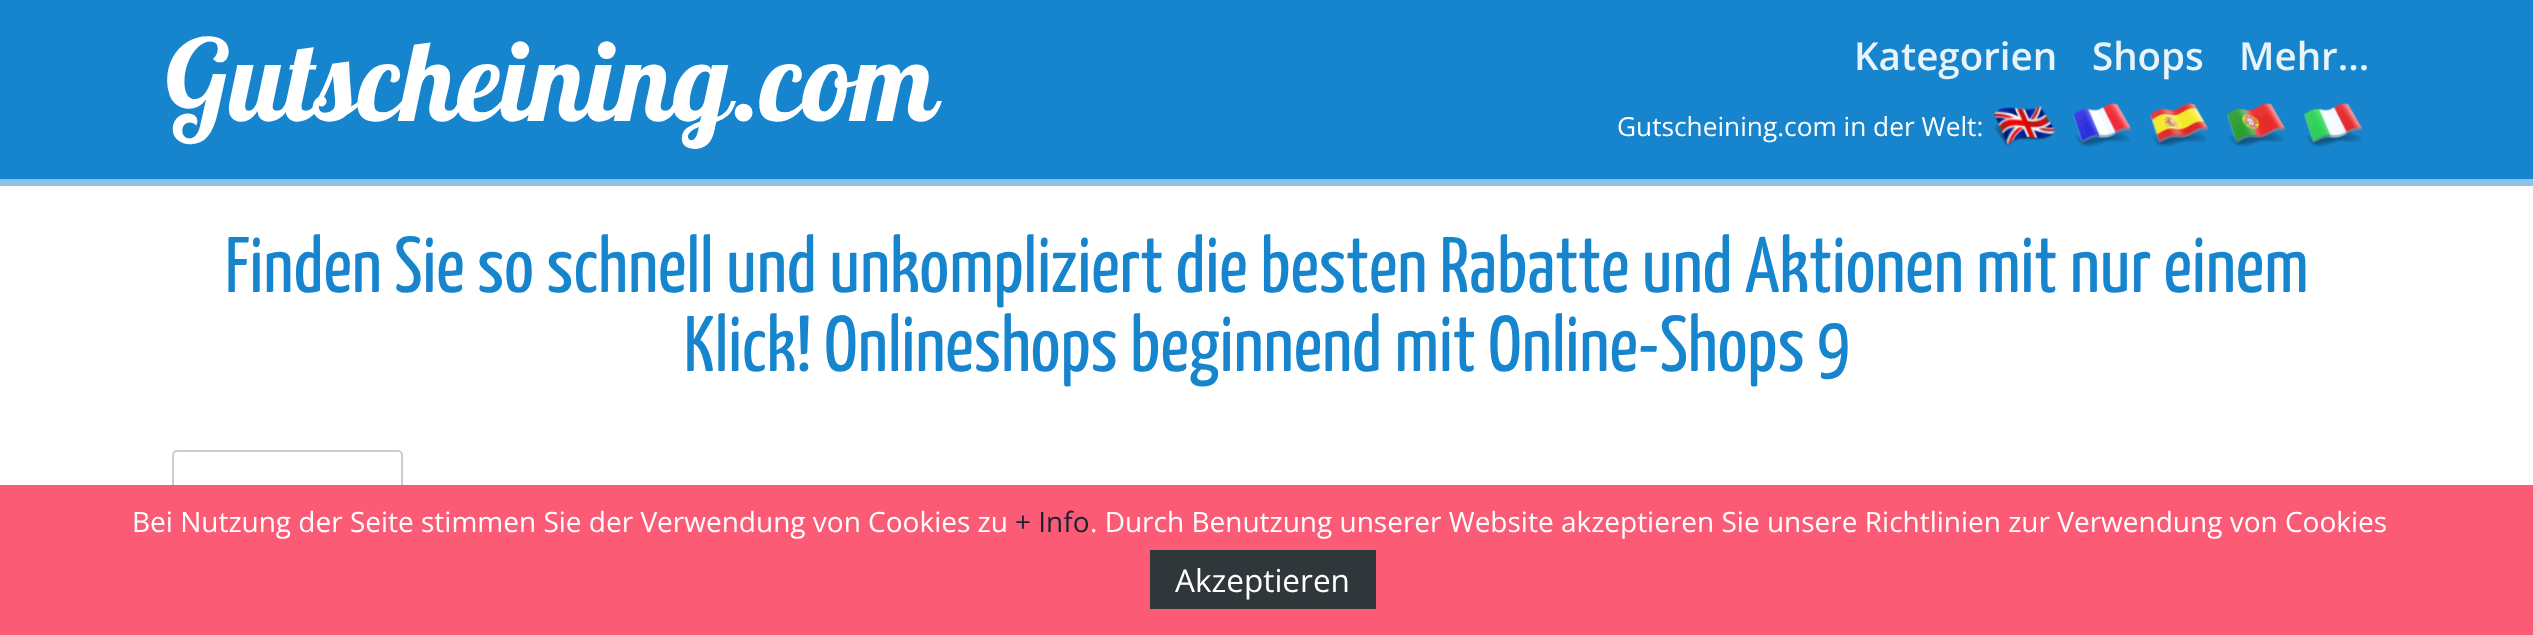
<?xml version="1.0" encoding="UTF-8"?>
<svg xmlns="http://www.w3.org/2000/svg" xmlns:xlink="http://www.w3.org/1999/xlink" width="2533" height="635">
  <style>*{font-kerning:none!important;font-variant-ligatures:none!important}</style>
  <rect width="100%" height="100%" fill="#ffffff" />
  <rect y="179" width="2533" height="7" fill="#8bc2e6" />
  <rect width="2533" height="179" fill="#1785cd" />
  <image x="1993" y="105" width="63" height="42" xlink:href="image1.png" />
  <image x="2073" y="103" width="58" height="44" xlink:href="image2.png" />
  <image x="2149" y="103" width="59" height="44" xlink:href="image3.png" />
  <image x="2226" y="103" width="59" height="44" xlink:href="image4.png" />
  <image x="2303" y="103" width="59" height="44" xlink:href="image5.png" />
  <rect x="173" y="451" width="229" height="124" rx="4" fill="none" stroke="#cccccc" stroke-width="2" />
  <rect y="485" width="2533" height="150" fill="#fb5b75" />
  <rect x="1150" y="550" width="226" height="59" fill="#30373b" />
  <text x="165" y="121" style="font-family: Lobster; font-size: 112px; fill: #ffffff">Gutscheining.com</text>
  <text x="1854" y="70" style="font-family: Open Sans; font-size: 38.5px; font-weight: 600; fill: #e8f3fa">Kategorien</text>
  <text x="2092" y="70" style="font-family: Open Sans; font-size: 38.5px; font-weight: 600; fill: #e8f3fa">Shops</text>
  <text x="2239" y="70" style="font-family: Open Sans; font-size: 38.5px; font-weight: 600; fill: #e8f3fa">Mehr...</text>
  <text x="1617" y="136" style="font-family: Open Sans; font-size: 26.25px; fill: #ffffff">Gutscheining.com in der Welt:</text>
  <text x="225" y="292" style="font-family: Yanone Kaffeesatz; font-size: 78.75px; fill: #1785cd">Finden Sie so schnell und unkompliziert die besten Rabatte und Aktionen mit nur einem</text>
  <text x="684" y="371" style="font-family: Yanone Kaffeesatz; font-size: 78.75px; fill: #1785cd">Klick! Onlineshops beginnend mit Online-Shops 9</text>
  <text x="132" y="532" style="font-family: Open Sans; font-size: 28px; fill: #ffffff">Bei Nutzung der Seite stimmen Sie der Verwendung von Cookies zu</text>
  <text x="1015" y="532" style="font-family: Open Sans; font-size: 28px; fill: #172533">+ Info</text>
  <text x="1090" y="532" style="font-family: Open Sans; font-size: 28px; fill: #ffffff">. Durch Benutzung unserer Website akzeptieren Sie unsere Richtlinien zur Verwendung von Cookies</text>
  <text x="1175" y="592" style="font-family: Open Sans; font-size: 31.5px; fill: #ffffff">Akzeptieren</text>
</svg>
